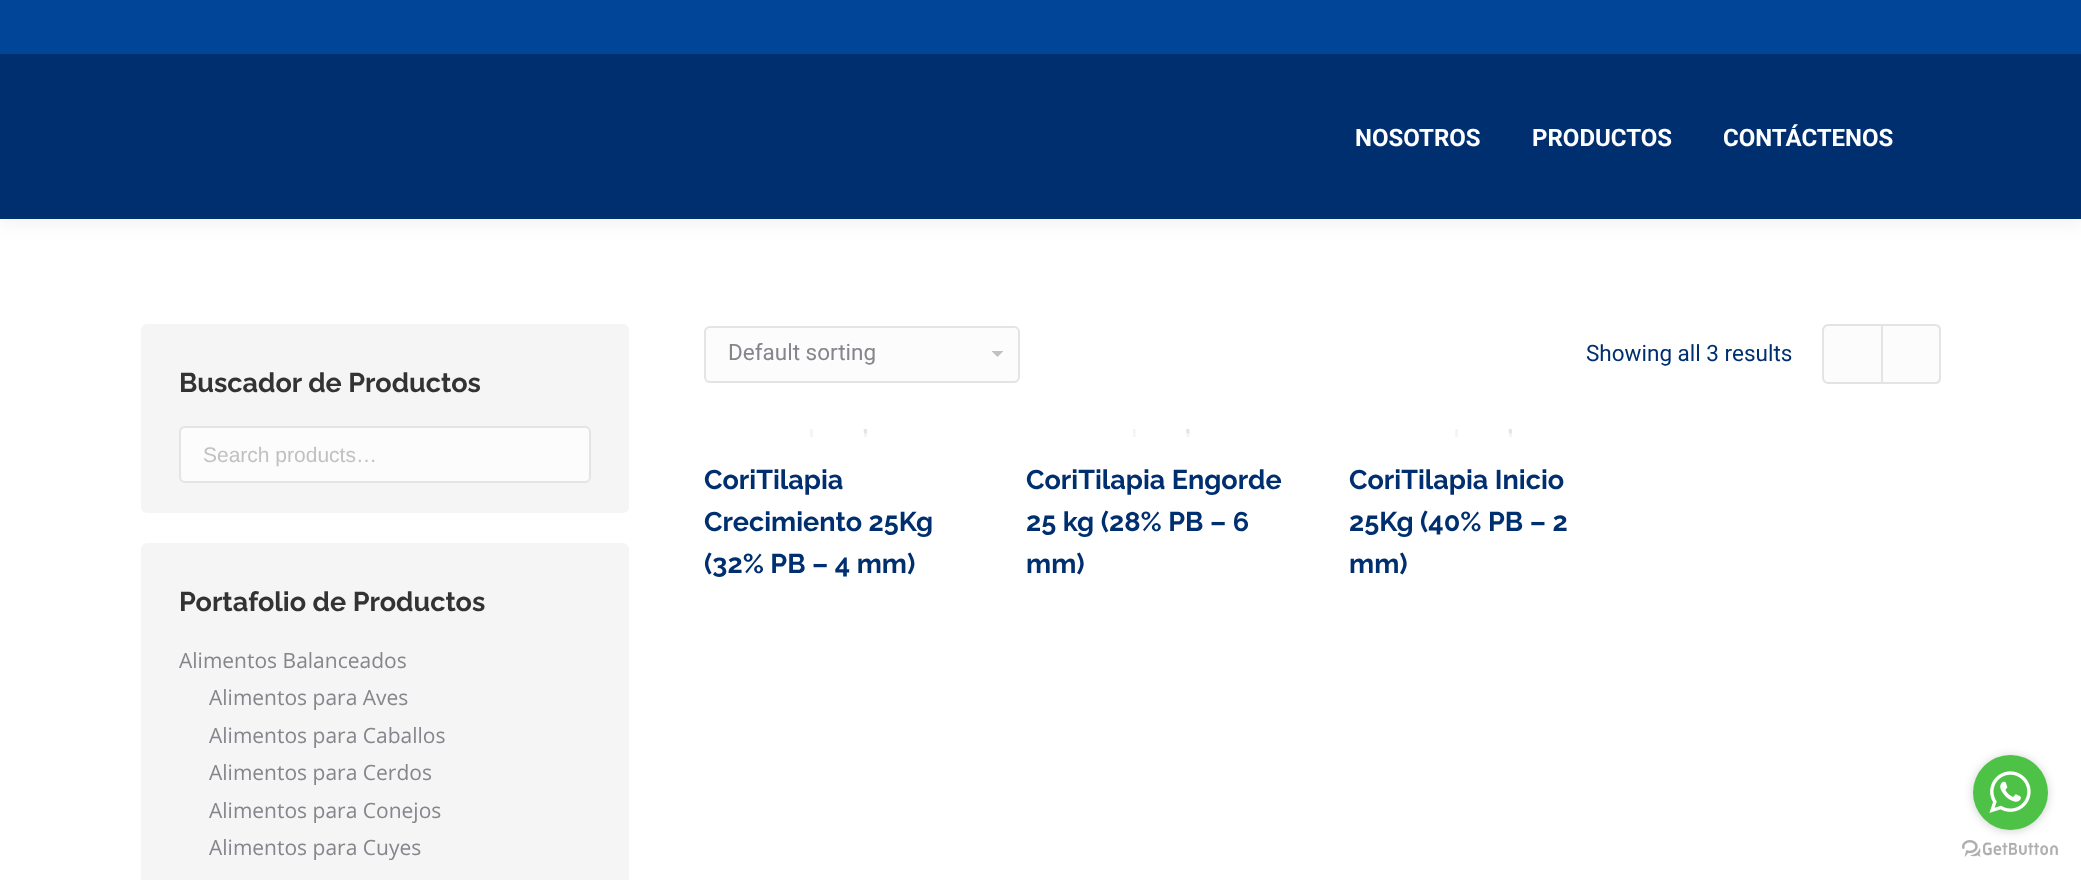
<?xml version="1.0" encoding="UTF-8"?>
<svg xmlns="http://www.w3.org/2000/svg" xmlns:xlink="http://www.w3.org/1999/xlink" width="2081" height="880">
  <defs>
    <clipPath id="clip1"><rect x="810" y="429" width="57" height="8" /></clipPath>
    <clipPath id="clip2"><rect x="1133" y="429" width="57" height="8" /></clipPath>
    <clipPath id="clip3"><rect x="1455" y="429" width="57" height="8" /></clipPath>
  </defs>
  <rect width="100%" height="100%" fill="#ffffff" />
  <rect x="-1" y="-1" width="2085" height="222" fill="#000000" fill-opacity="0.07" filter="blur(11px)" />
  <rect y="54" width="2081" height="165" fill="#002f70" />
  <rect width="2081" height="54" fill="#004597" />
  <rect x="141" y="324" width="488" height="189" rx="6" fill="#f5f5f5" />
  <rect x="180" y="427" width="410" height="55" rx="5" fill="#fcfcfc" stroke="#e4e4e4" stroke-width="2" />
  <rect x="141" y="543" width="488" height="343" rx="6" fill="#f5f5f5" />
  <rect x="704" y="326" width="316" height="57" rx="6" fill="#fcfcfc" />
  <path d="M 991.5 351 l 6 6 l 6 -6 z" fill="#c1c1c4" />
  <rect x="705" y="327" width="314" height="55" rx="5" fill="none" stroke="#e4e4e4" stroke-width="2" />
  <path d="M 1829 324 h 52 v 60 h -52 c -3.5 0 -6 -2.5 -6 -6 v -48 c 0 -3.5 2.5 -6 6 -6 z" fill="#fcfcfc" />
  <path d="M 1828 324 h 53 v 60 h -53 c -3 0 -6 -3 -6 -6 v -48 c 0 -3 3 -6 6 -6 z m 0 2 h 53 v 56 h -53 c -2 0 -4 -2 -4 -4 v -48 c 0 -2 2 -4 4 -4 z" fill="#333333" fill-opacity="0.12" fill-rule="evenodd" />
  <path d="M 1882 325 h 53 c 3 0 5 2 5 5 v 48 c 0 3 -2 5 -5 5 h -53 z" fill="#fcfcfc" stroke="#e4e4e4" stroke-width="2" />
  <g clip-path="url(#clip1)">
    <circle cx="838.5" cy="433.5" r="27" fill="none" stroke="#f5f5f5" stroke-width="3" />
    <path d="M 865.5 433.5 c 0 -15 -12 -27 -27 -27" fill="none" stroke="#b5b5b5" stroke-opacity="0.25" stroke-width="3" />
  </g>
  <g clip-path="url(#clip2)">
    <circle cx="1161" cy="433.5" r="27" fill="none" stroke="#f5f5f5" stroke-width="3" />
    <path d="M 1188 433.5 c 0 -15 -12 -27 -27 -27" fill="none" stroke="#b5b5b5" stroke-opacity="0.25" stroke-width="3" />
  </g>
  <g clip-path="url(#clip3)">
    <circle cx="1483.5" cy="433.5" r="27" fill="none" stroke="#f5f5f5" stroke-width="3" />
    <path d="M 1510.5 433.5 c 0 -15 -12 -27 -27 -27" fill="none" stroke="#b5b5b5" stroke-opacity="0.25" stroke-width="3" />
  </g>
  <image x="1962" y="840" width="96" height="17" xlink:href="image2.png" />
  <rect x="1973" y="756" width="75" height="75" rx="37.5" fill="#888888" fill-opacity="0.4" filter="blur(5px)" />
  <circle cx="2010.5" cy="792.5" r="37.5" fill="#4dc247" />
  <image x="1989" y="771" width="42" height="42" xlink:href="image1.png" />
  <text x="1355" y="146" style="font-family: Roboto; font-size: 24px; font-weight: bold; fill: #ffffff">NOSOTROS</text>
  <text x="1532" y="146" style="font-family: Roboto; font-size: 24px; font-weight: bold; fill: #ffffff">PRODUCTOS</text>
  <text x="1723" y="146" style="font-family: Roboto; font-size: 24px; font-weight: bold; fill: #ffffff">CONTÁCTENOS</text>
  <text x="179" y="392" style="font-family: Raleway; font-size: 27px; font-weight: bold; fill: #333333">Buscador de Productos</text>
  <text x="203" y="462" style="font-family: Liberation Sans; font-size: 21px; fill: #c1c1c4">Search products…</text>
  <text x="179" y="611" style="font-family: Raleway; font-size: 27px; font-weight: bold; fill: #333333">Portafolio de Productos</text>
  <text x="179" y="668" style="font-family: Open Sans; font-size: 21px; fill: #85868c">Alimentos Balanceados</text>
  <text x="209" y="705" style="font-family: Open Sans; font-size: 21px; fill: #85868c">Alimentos para Aves</text>
  <text x="209" y="743" style="font-family: Open Sans; font-size: 21px; fill: #85868c">Alimentos para Caballos</text>
  <text x="209" y="780" style="font-family: Open Sans; font-size: 21px; fill: #85868c">Alimentos para Cerdos</text>
  <text x="209" y="818" style="font-family: Open Sans; font-size: 21px; fill: #85868c">Alimentos para Conejos</text>
  <text x="209" y="855" style="font-family: Open Sans; font-size: 21px; fill: #85868c">Alimentos para Cuyes</text>
  <text x="728" y="360" style="font-family: Roboto; font-size: 22.5px; fill: #85868c">Default sorting</text>
  <text x="1586" y="361" style="font-family: Roboto; font-size: 22.5px; fill: #002f70">Showing all 3 results</text>
  <text x="704" y="489" style="font-family: Raleway; font-size: 27px; font-weight: bold; fill: #002f70">CoriTilapia</text>
  <text x="704" y="531" style="font-family: Raleway; font-size: 27px; font-weight: bold; fill: #002f70">Crecimiento 25Kg</text>
  <text x="704" y="573" style="font-family: Raleway; font-size: 27px; font-weight: bold; fill: #002f70">(32% PB – 4 mm)</text>
  <text x="1026" y="489" style="font-family: Raleway; font-size: 27px; font-weight: bold; fill: #002f70">CoriTilapia Engorde</text>
  <text x="1026" y="531" style="font-family: Raleway; font-size: 27px; font-weight: bold; fill: #002f70">25 kg (28% PB – 6</text>
  <text x="1026" y="573" style="font-family: Raleway; font-size: 27px; font-weight: bold; fill: #002f70">mm)</text>
  <text x="1349" y="489" style="font-family: Raleway; font-size: 27px; font-weight: bold; fill: #002f70">CoriTilapia Inicio</text>
  <text x="1349" y="531" style="font-family: Raleway; font-size: 27px; font-weight: bold; fill: #002f70">25Kg (40% PB – 2</text>
  <text x="1349" y="573" style="font-family: Raleway; font-size: 27px; font-weight: bold; fill: #002f70">mm)</text>
</svg>
